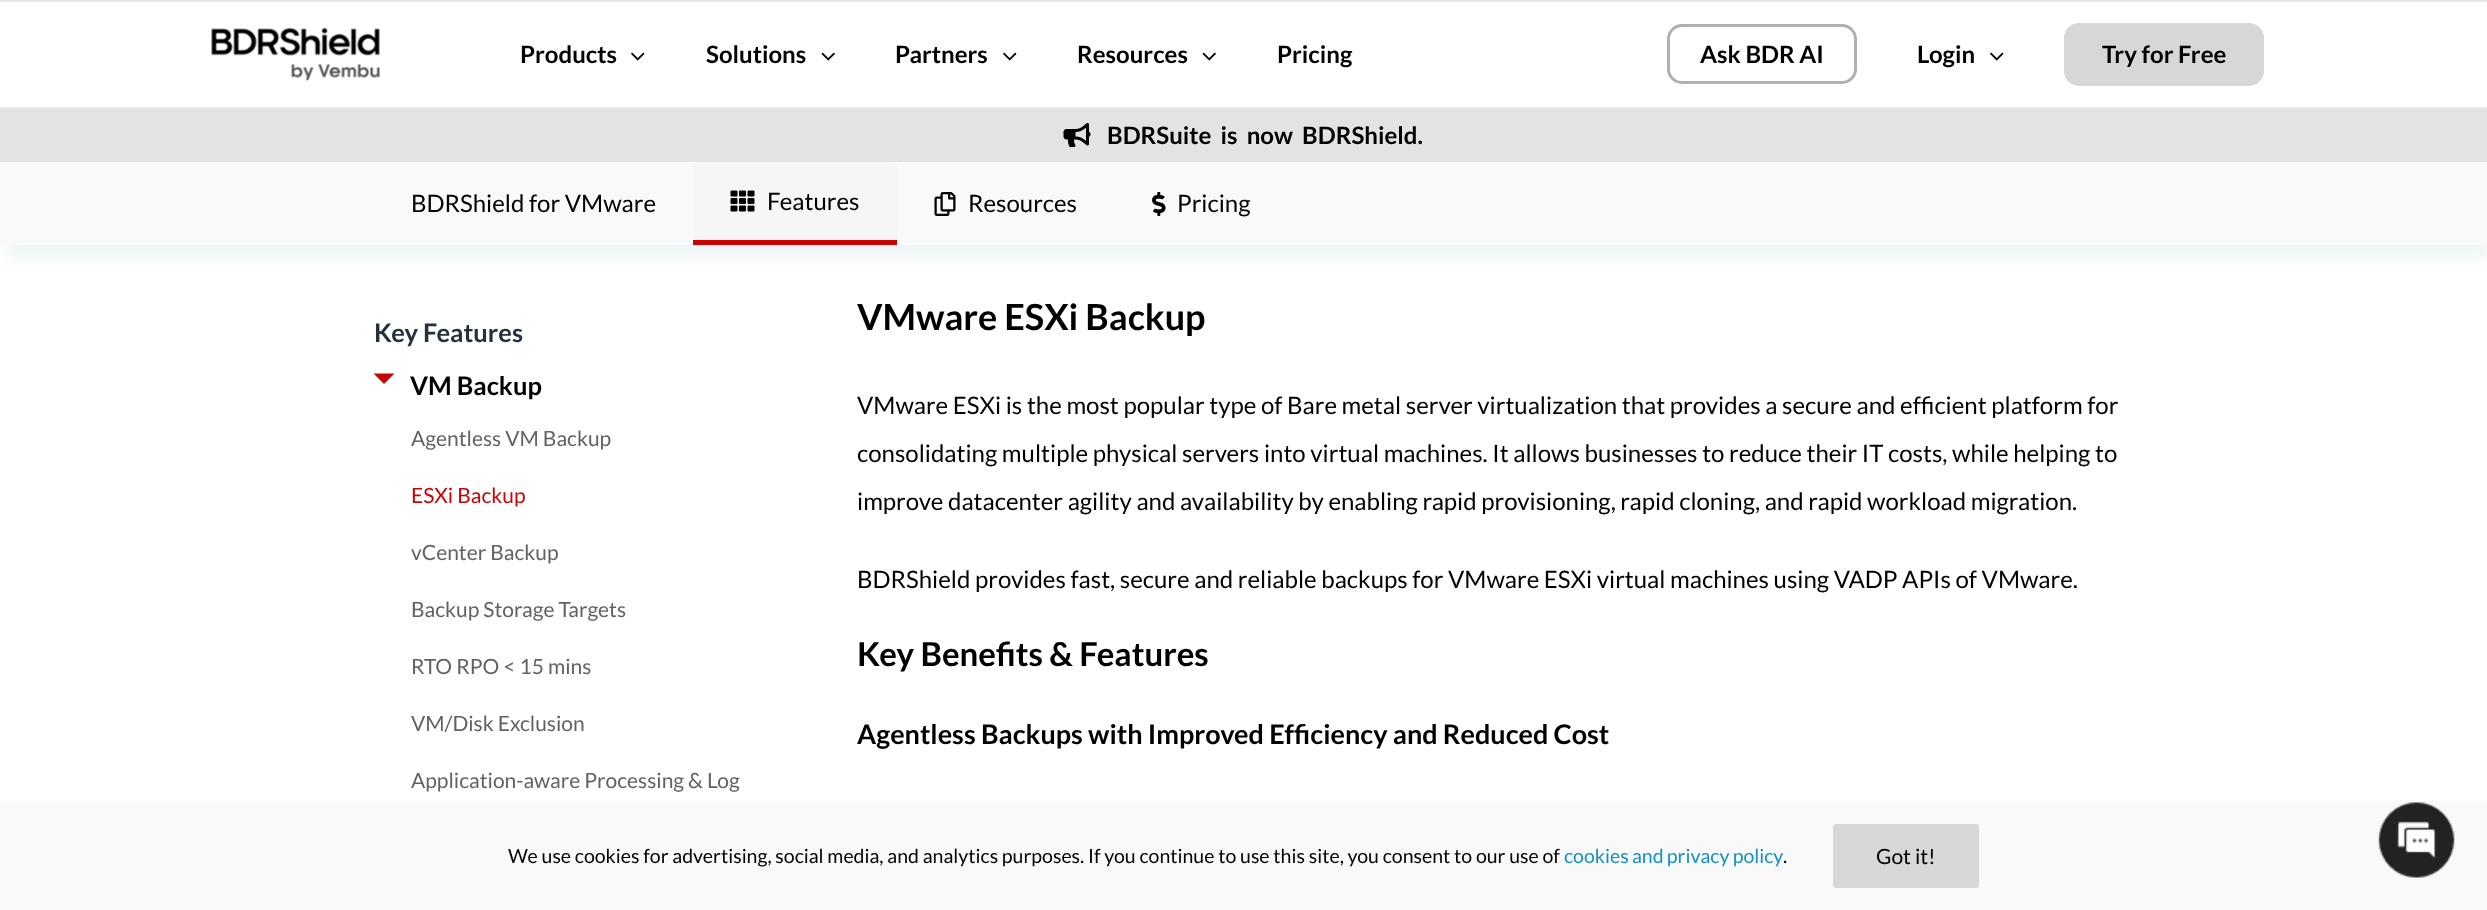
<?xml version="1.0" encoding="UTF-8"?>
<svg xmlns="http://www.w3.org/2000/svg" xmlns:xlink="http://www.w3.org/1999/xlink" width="2487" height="910">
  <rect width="100%" height="100%" fill="#ffffff" />
  <rect width="2487" height="2" fill="#e5e5e5" />
  <rect y="107" width="2487" height="2" fill="#e8e8e8" />
  <image x="211" y="27" width="169" height="54" xlink:href="image1.png" />
  <image x="631" y="52" width="14" height="9" xlink:href="image2.png" />
  <image x="821" y="52" width="14" height="9" xlink:href="image3.png" />
  <image x="1003" y="52" width="14" height="9" xlink:href="image2.png" />
  <image x="1202" y="52" width="14" height="9" xlink:href="image3.png" />
  <rect x="1668.5" y="25.5" width="187" height="57" rx="13.5" fill="none" stroke="#b0b0b0" stroke-width="3" />
  <image x="1990" y="52" width="14" height="9" xlink:href="image2.png" />
  <rect x="2065.5" y="24.5" width="197" height="60" rx="13.5" fill="#d7d7d7" stroke="#d7d7d7" stroke-width="3" />
  <rect y="109" width="2487" height="53" fill="#e4e3e3" />
  <image x="1063" y="123" width="28" height="24" xlink:href="image4.png" />
  <rect x="6" y="174" width="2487" height="83" fill="#035e5e" fill-opacity="0.07" filter="blur(9px)" />
  <rect y="162" width="2487" height="83" fill="#f9f9f9" />
  <path d="M 698 162 h 194 c 3 0 5 2 5 5 v 78 h -204 v -78 c 0 -3 2 -5 5 -5 z" fill="#f6f6f6" />
  <rect x="693" y="240" width="204" height="5" fill="#c90404" />
  <image x="730" y="190" width="25" height="22" xlink:href="image5.png" />
  <image x="934" y="192" width="22" height="24" xlink:href="image6.png" />
  <image x="1152" y="192" width="14" height="24" xlink:href="image7.png" />
  <path d="M 373.5 373.5 h 21 l -10.5 10.5 z" fill="#c90404" />
  <rect y="801" width="2487" height="109" fill="#f9f9f9" />
  <rect x="1833" y="824" width="146" height="64" rx="3" fill="#d7d7d7" />
  <image x="2378" y="802" width="77" height="76" xlink:href="image8.png" />
  <text x="520" y="63" style="font-family: Lato; font-size: 24px; font-weight: bold; fill: #000000">Products</text>
  <text x="706" y="63" style="font-family: Lato; font-size: 24px; font-weight: bold; fill: #000000">Solutions</text>
  <text x="895" y="63" style="font-family: Lato; font-size: 24px; font-weight: bold; fill: #000000">Partners</text>
  <text x="1077" y="63" style="font-family: Lato; font-size: 24px; font-weight: bold; fill: #000000">Resources</text>
  <text x="1277" y="63" style="font-family: Lato; font-size: 24px; font-weight: bold; fill: #000000">Pricing</text>
  <text x="1700" y="63" style="font-family: Lato; font-size: 24px; font-weight: bold; fill: #000000">Ask BDR AI</text>
  <text x="1917" y="63" style="font-family: Lato; font-size: 24px; font-weight: bold; fill: #000000">Login</text>
  <text x="2102" y="63" style="font-family: Lato; font-size: 24px; font-weight: bold; fill: #000000">Try for Free</text>
  <text x="1107" y="144" word-spacing="4.5" style="font-family: Lato; font-size: 24px; font-weight: bold; fill: #000000">BDRSuite is now BDRShield.</text>
  <text x="411" y="212" style="font-family: Lato; font-size: 24px; fill: #000000">BDRShield for VMware</text>
  <text x="767" y="210" style="font-family: Lato; font-size: 24px; fill: #000000">Features</text>
  <text x="968" y="212" style="font-family: Lato; font-size: 24px; fill: #000000">Resources</text>
  <text x="1177" y="212" style="font-family: Lato; font-size: 24px; fill: #000000">Pricing</text>
  <text x="374" y="342" style="font-family: Lato; font-size: 25.5px; font-weight: bold; fill: #25313d">Key Features</text>
  <text x="410" y="395" style="font-family: Lato; font-size: 25.5px; font-weight: bold; fill: #000000">VM Backup</text>
  <text x="411" y="446" style="font-family: Lato; font-size: 21px; fill: #5f6368">Agentless VM Backup</text>
  <text x="411" y="503" style="font-family: Lato; font-size: 21px; fill: #c90404">ESXi Backup</text>
  <text x="411" y="560" style="font-family: Lato; font-size: 21px; fill: #5f6368">vCenter Backup</text>
  <text x="411" y="617" style="font-family: Lato; font-size: 21px; fill: #5f6368">Backup Storage Targets</text>
  <text x="411" y="674" style="font-family: Lato; font-size: 21px; fill: #5f6368">RTO RPO &lt; 15 mins</text>
  <text x="411" y="731" style="font-family: Lato; font-size: 21px; fill: #5f6368">VM/Disk Exclusion</text>
  <text x="411" y="788" style="font-family: Lato; font-size: 21px; fill: #5f6368">Application-aware Processing &amp; Log</text>
  <text x="857" y="330" style="font-family: Lato; font-size: 36px; font-weight: bold; fill: #000000">VMware ESXi Backup</text>
  <text x="857" y="414" style="font-family: Lato; font-size: 24px; fill: #000000">VMware ESXi is the most popular type of Bare metal server virtualization that provides a secure and efficient platform for</text>
  <text x="857" y="462" style="font-family: Lato; font-size: 24px; fill: #000000">consolidating multiple physical servers into virtual machines. It allows businesses to reduce their IT costs, while helping to</text>
  <text x="857" y="510" style="font-family: Lato; font-size: 24px; fill: #000000">improve datacenter agility and availability by enabling rapid provisioning, rapid cloning, and rapid workload migration.</text>
  <text x="857" y="588" style="font-family: Lato; font-size: 24px; fill: #000000">BDRShield provides fast, secure and reliable backups for VMware ESXi virtual machines using VADP APIs of VMware.</text>
  <text x="857" y="666" style="font-family: Lato; font-size: 33px; font-weight: bold; fill: #000000">Key Benefits &amp; Features</text>
  <text x="857" y="744" style="font-family: Lato; font-size: 27px; font-weight: bold; fill: #000000">Agentless Backups with Improved Efficiency and Reduced Cost</text>
  <text x="508" y="863" style="font-family: Lato; font-size: 19.5px; fill: #000000">We use cookies for advertising, social media, and analytics purposes. If you continue to use this site, you consent to our use of</text>
  <text x="1564" y="863" word-spacing="-0.5" style="font-family: Lato; font-size: 19.5px; fill: #1091c7">cookies and privacy policy</text>
  <text x="1783" y="863" style="font-family: Lato; font-size: 19.5px; fill: #000000">.</text>
  <text x="1876" y="864" style="font-family: Lato; font-size: 21px; fill: #000000">Got it!</text>
</svg>
